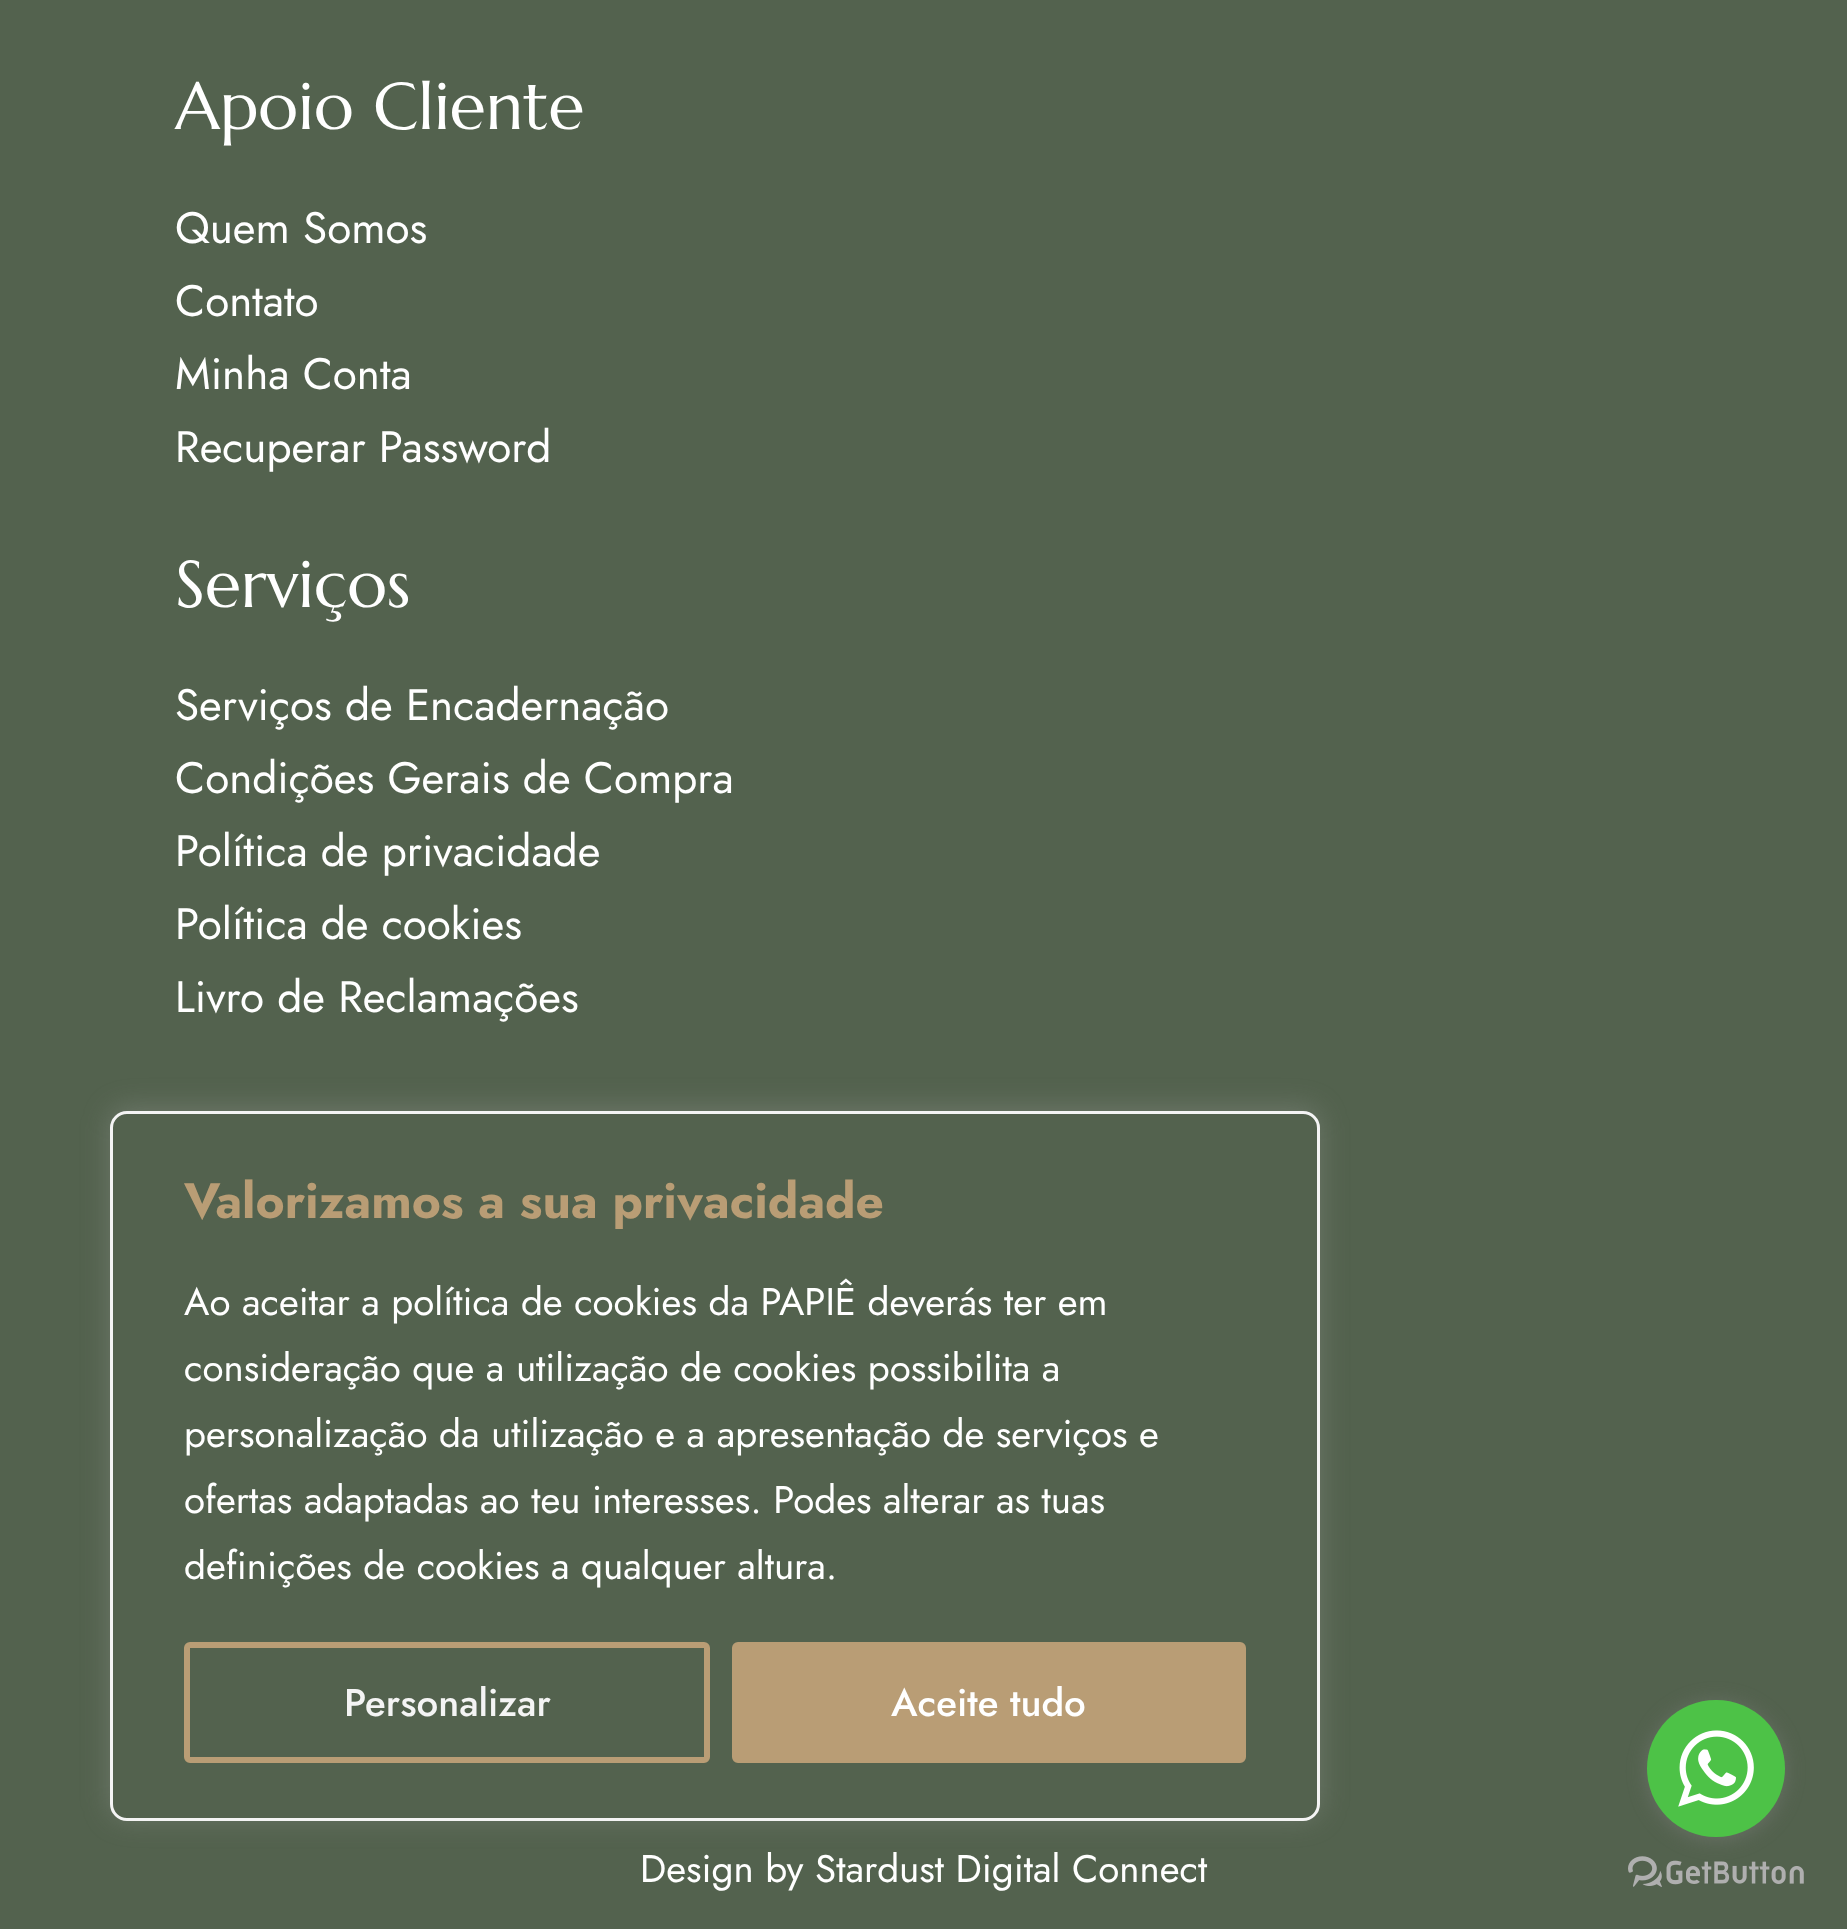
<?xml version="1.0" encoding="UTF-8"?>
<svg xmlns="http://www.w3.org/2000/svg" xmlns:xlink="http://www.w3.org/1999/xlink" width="1847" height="1929">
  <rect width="100%" height="100%" fill="#53624e" />
  <rect x="110" y="1108" width="1210" height="710" rx="17" fill="#acabab" fill-opacity="0.3" filter="blur(14px)" />
  <rect x="111.5" y="1112.5" width="1207" height="707" rx="15.5" fill="#53624e" stroke="#f4f4f4" stroke-width="3" />
  <rect x="187" y="1645" width="520" height="115" rx="3" fill="none" stroke="#b99d75" stroke-width="6" />
  <rect x="735" y="1645" width="508" height="115" rx="3" fill="#b99d75" stroke="#b99d75" stroke-width="6" />
  <image x="1628" y="1856" width="176" height="31" xlink:href="image2.png" />
  <rect x="1647" y="1702" width="138" height="138" rx="69" fill="#888888" fill-opacity="0.4" filter="blur(9.5px)" />
  <rect x="1647" y="1700" width="138" height="137" rx="68.5" fill="#4dc247" />
  <image x="1678" y="1730" width="76" height="77" xlink:href="image1.png" />
  <text x="175" y="129" style="font-family: Marcellus; font-size: 66px; fill: #ffffff">Apoio Cliente</text>
  <text x="175" y="243" style="font-family: Jost; font-size: 44px; fill: #ffffff">Quem Somos</text>
  <text x="175" y="316" style="font-family: Jost; font-size: 44px; fill: #ffffff">Contato</text>
  <text x="175" y="389" style="font-family: Jost; font-size: 44px; fill: #ffffff">Minha Conta</text>
  <text x="175" y="462" style="font-family: Jost; font-size: 44px; fill: #ffffff">Recuperar Password</text>
  <text x="175" y="607" style="font-family: Marcellus; font-size: 66px; fill: #ffffff">Serviços</text>
  <text x="175" y="720" style="font-family: Jost; font-size: 44px; fill: #ffffff">Serviços de Encadernação</text>
  <text x="175" y="793" style="font-family: Jost; font-size: 44px; fill: #ffffff">Condições Gerais de Compra</text>
  <text x="175" y="866" style="font-family: Jost; font-size: 44px; fill: #ffffff">Política de privacidade</text>
  <text x="175" y="939" style="font-family: Jost; font-size: 44px; fill: #ffffff">Política de cookies</text>
  <text x="175" y="1012" style="font-family: Jost; font-size: 44px; fill: #ffffff">Livro de Reclamações</text>
  <text x="640" y="1882" style="font-family: Jost; font-size: 38.5px; fill: #ffffff">Design by Stardust Digital Connect</text>
  <text x="184" y="1218" style="font-family: Jost; font-size: 49.5px; font-weight: bold; fill: #b99d75">Valorizamos a sua privacidade</text>
  <text x="184" y="1315" style="font-family: Jost; font-size: 38.5px; fill: #ffffff">Ao aceitar a política de cookies da PAPIÊ deverás ter em</text>
  <text x="184" y="1381" style="font-family: Jost; font-size: 38.5px; fill: #ffffff">consideração que a utilização de cookies possibilita a</text>
  <text x="184" y="1447" style="font-family: Jost; font-size: 38.5px; fill: #ffffff">personalização da utilização e a apresentação de serviços e</text>
  <text x="184" y="1513" style="font-family: Jost; font-size: 38.5px; fill: #ffffff">ofertas adaptadas ao teu interesses. Podes alterar as tuas</text>
  <text x="184" y="1579" style="font-family: Jost; font-size: 38.5px; fill: #ffffff">definições de cookies a qualquer altura.</text>
  <text x="344" y="1716" style="font-family: Jost; font-size: 38.5px; font-weight: 500; fill: #f4f4f4">Personalizar</text>
  <text x="891" y="1716" style="font-family: Jost; font-size: 38.5px; font-weight: 500; fill: #ffffff">Aceite tudo</text>
</svg>
